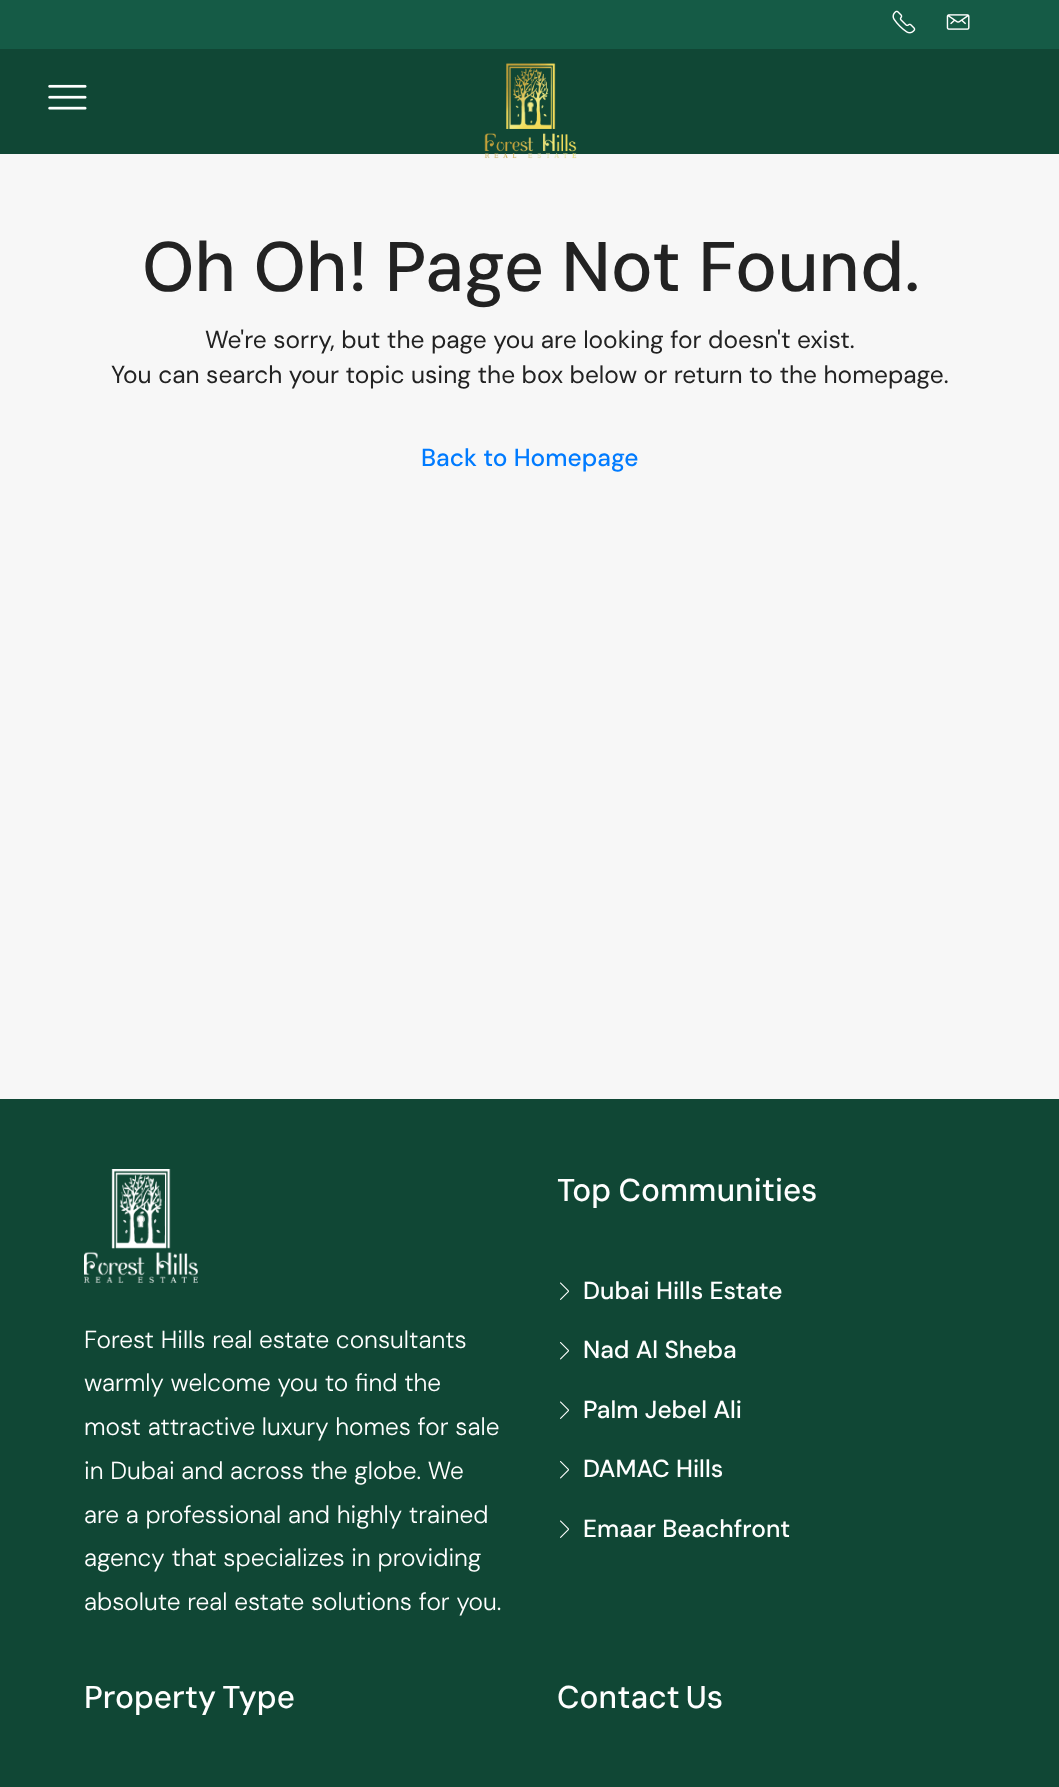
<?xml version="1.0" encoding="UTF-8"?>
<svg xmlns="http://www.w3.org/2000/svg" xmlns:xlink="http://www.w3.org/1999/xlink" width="1059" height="1787">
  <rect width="100%" height="100%" fill="#f7f7f7" />
  <rect width="1059" height="49" fill="#155b46" />
  <image x="892" y="10" width="24" height="24" xlink:href="image1.png" />
  <image x="946" y="14" width="24" height="16" xlink:href="image2.png" />
  <rect y="49" width="1059" height="105" fill="#104735" />
  <image x="48" y="84" width="39" height="26" xlink:href="image3.png" />
  <image x="484" y="63" width="93" height="96" xlink:href="image4.png" />
  <rect y="1099" width="1059" height="688" fill="#104735" />
  <image x="84" y="1169" width="114" height="114" xlink:href="image5.png" />
  <image x="560" y="1282" width="9" height="18" xlink:href="image6.png" />
  <image x="560" y="1342" width="9" height="18" xlink:href="image7.png" />
  <image x="560" y="1401" width="9" height="18" xlink:href="image6.png" />
  <image x="560" y="1461" width="9" height="18" xlink:href="image7.png" />
  <image x="560" y="1520" width="9" height="18" xlink:href="image6.png" />
  <text x="142" y="291" word-spacing="-1" style="font-family: DM Sans; font-size: 70px; font-weight: 500; fill: #222222">Oh Oh! Page Not Found.</text>
  <text x="205" y="348" style="font-family: DM Sans; font-size: 24.5px; fill: #222222">We're sorry, but the page you are looking for doesn't exist.</text>
  <text x="111" y="383" style="font-family: DM Sans; font-size: 24.5px; fill: #222222">You can search your topic using the box below or return to the homepage.</text>
  <text x="421" y="466" style="font-family: 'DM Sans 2'; font-size: 24.5px; font-weight: 500; fill: #007bff">Back to Homepage</text>
  <text x="84" y="1348" style="font-family: DM Sans; font-size: 24.5px; font-weight: 300; fill: #ffffff">Forest Hills real estate consultants</text>
  <text x="84" y="1391" style="font-family: DM Sans; font-size: 24.5px; font-weight: 300; fill: #ffffff">warmly welcome you to find the</text>
  <text x="84" y="1435" style="font-family: DM Sans; font-size: 24.5px; font-weight: 300; fill: #ffffff">most attractive luxury homes for sale</text>
  <text x="84" y="1479" style="font-family: DM Sans; font-size: 24.5px; font-weight: 300; fill: #ffffff">in Dubai and across the globe. We</text>
  <text x="84" y="1523" style="font-family: DM Sans; font-size: 24.5px; font-weight: 300; fill: #ffffff">are a professional and highly trained</text>
  <text x="84" y="1566" style="font-family: DM Sans; font-size: 24.5px; font-weight: 300; fill: #ffffff">agency that specializes in providing</text>
  <text x="84" y="1610" style="font-family: DM Sans; font-size: 24.5px; font-weight: 300; fill: #ffffff">absolute real estate solutions for you.</text>
  <text x="557" y="1201" word-spacing="-1" style="font-family: DM Sans; font-size: 31.5px; font-weight: 500; fill: #ffffff">Top Communities</text>
  <text x="583" y="1299" style="font-family: 'DM Sans 2'; font-size: 24.5px; font-weight: 500; fill: #ffffff">Dubai Hills Estate</text>
  <text x="583" y="1358" style="font-family: 'DM Sans 2'; font-size: 24.5px; font-weight: 500; fill: #ffffff">Nad Al Sheba</text>
  <text x="583" y="1418" style="font-family: 'DM Sans 2'; font-size: 24.5px; font-weight: 500; fill: #ffffff">Palm Jebel Ali</text>
  <text x="583" y="1477" style="font-family: 'DM Sans 2'; font-size: 24.5px; font-weight: 500; fill: #ffffff">DAMAC Hills</text>
  <text x="583" y="1537" style="font-family: 'DM Sans 2'; font-size: 24.5px; font-weight: 500; fill: #ffffff">Emaar Beachfront</text>
  <text x="84" y="1708" word-spacing="-2" style="font-family: DM Sans; font-size: 31.5px; font-weight: 500; fill: #ffffff">Property Type</text>
  <text x="557" y="1708" word-spacing="-2" style="font-family: DM Sans; font-size: 31.5px; font-weight: 500; fill: #ffffff">Contact Us</text>
</svg>
